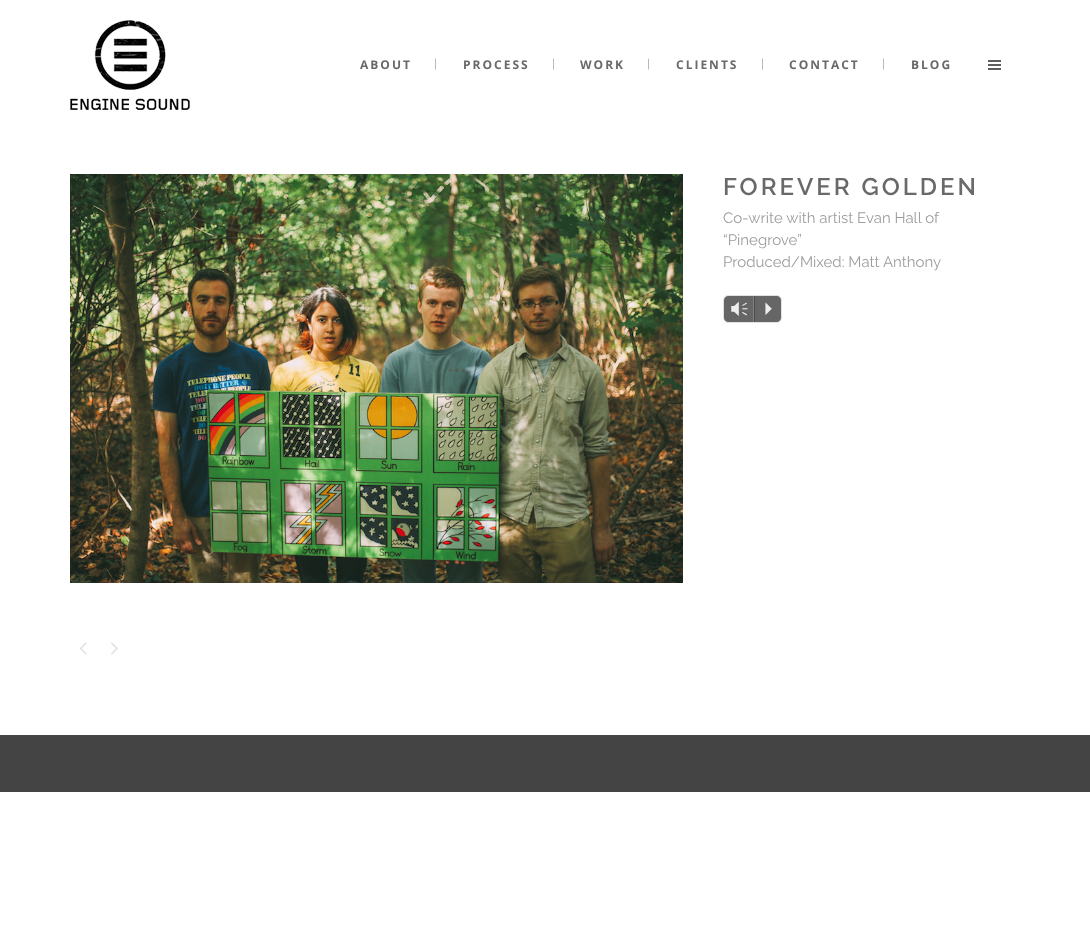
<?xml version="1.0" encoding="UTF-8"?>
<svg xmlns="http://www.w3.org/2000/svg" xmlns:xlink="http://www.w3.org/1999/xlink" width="1090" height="952">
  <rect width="100%" height="100%" fill="#ffffff" />
  <image x="70" y="20" width="120" height="90" xlink:href="image1.png" />
  <rect x="988" y="64" width="13" height="2" fill="#5d5d5d" />
  <rect x="988" y="60" width="13" height="2" fill="#5d5d5d" />
  <rect x="988" y="68" width="13" height="2" fill="#5d5d5d" />
  <image x="70" y="174" width="613" height="409" xlink:href="image2.png" />
  <image x="79" y="642" width="8" height="13" xlink:href="image3.png" />
  <image x="111" y="642" width="7" height="13" xlink:href="image4.png" />
  <rect x="723.5" y="295.5" width="58" height="27" rx="4.5" fill="none" stroke="#e1e1e1" />
  <path d="M 728 296 h 26 v 26 h -26 c -2 0 -4 -2 -4 -4 v -18 c 0 -2 2 -4 4 -4 z" fill="#666666" />
  <rect x="753" y="296" width="1" height="26" fill="#808080" />
  <path d="M 754 296 h 23 c 2 0 4 2 4 4 v 18 c 0 2 -2 4 -4 4 h -23 z" fill="#666666" />
  <rect x="754" y="296" width="1" height="26" fill="#4d4d4d" />
  <rect y="735" width="1090" height="57" fill="#444444" />
  <text x="360" y="69" style="font-family: Open Sans; font-size: 12px; font-weight: bold; letter-spacing: 2px; fill: #696969">ABOUT</text>
  <text x="434" y="68" style="font-family: Raleway; font-size: 12px; fill: #9d9d9d">|</text>
  <text x="463" y="69" style="font-family: Open Sans; font-size: 12px; font-weight: bold; letter-spacing: 2px; fill: #696969">PROCESS</text>
  <text x="552" y="68" style="font-family: Raleway; font-size: 12px; fill: #9d9d9d">|</text>
  <text x="580" y="69" style="font-family: Open Sans; font-size: 12px; font-weight: bold; letter-spacing: 2px; fill: #696969">WORK</text>
  <text x="647" y="68" style="font-family: Raleway; font-size: 12px; fill: #9d9d9d">|</text>
  <text x="676" y="69" style="font-family: Open Sans; font-size: 12px; font-weight: bold; letter-spacing: 2px; fill: #696969">CLIENTS</text>
  <text x="761" y="68" style="font-family: Raleway; font-size: 12px; fill: #9d9d9d">|</text>
  <text x="789" y="69" style="font-family: Open Sans; font-size: 12px; font-weight: bold; letter-spacing: 2px; fill: #696969">CONTACT</text>
  <text x="882" y="68" style="font-family: Raleway; font-size: 12px; fill: #9d9d9d">|</text>
  <text x="911" y="69" style="font-family: Open Sans; font-size: 12px; font-weight: bold; letter-spacing: 2px; fill: #696969">BLOG</text>
  <text x="723" y="195" style="font-family: Raleway; font-size: 24px; font-weight: 600; letter-spacing: 3px; fill: #696969">FOREVER GOLDEN</text>
  <text x="723" y="223" style="font-family: Raleway; font-size: 15px; fill: #9d9d9d">Co-write with artist Evan Hall of</text>
  <text x="723" y="245" style="font-family: Raleway; font-size: 15px; fill: #9d9d9d">“Pinegrove”</text>
  <text x="723" y="267" style="font-family: Raleway; font-size: 15px; fill: #9d9d9d">Produced/Mixed: Matt Anthony</text>
  <text x="730" y="315" style="font-family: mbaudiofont; font-size: 20px; fill: #eeeeee">Vm</text>
  <text x="758" y="315" style="font-family: mbaudiofont; font-size: 20px; fill: #eeeeee">P</text>
</svg>
